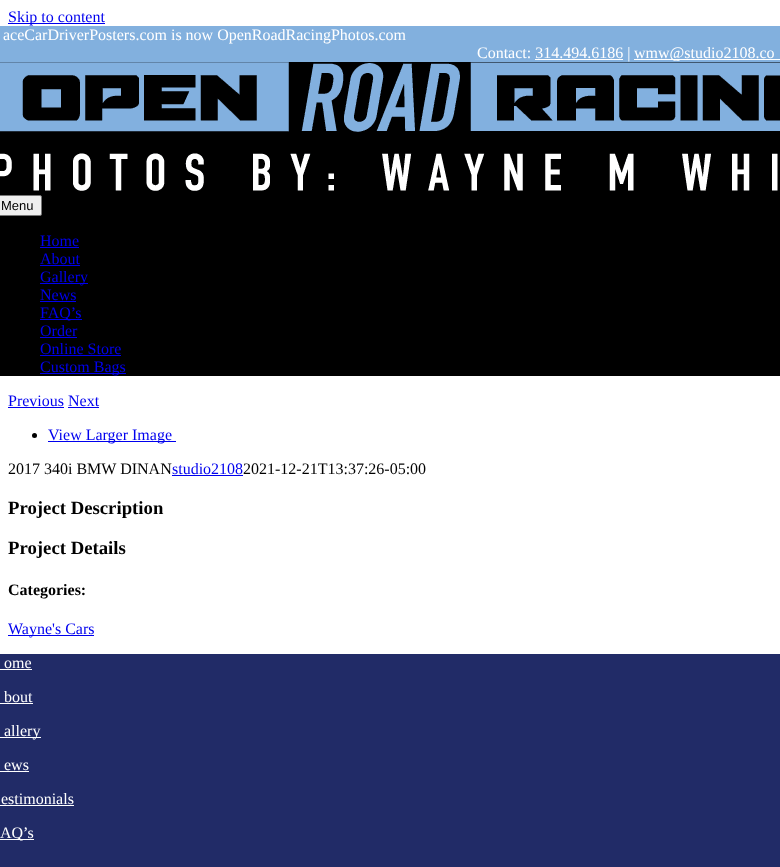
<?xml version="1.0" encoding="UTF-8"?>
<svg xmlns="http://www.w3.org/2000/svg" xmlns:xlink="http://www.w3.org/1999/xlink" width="780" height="867">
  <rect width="100%" height="100%" fill="#ffffff" />
  <rect x="8" y="23" width="97" height="1" fill="#0000ee" />
  <rect y="26" width="780" height="36" fill="#82b0de" />
  <rect x="634" y="59" width="146" height="1" fill="#ffffff" />
  <rect x="535" y="59" width="88" height="1" fill="#ffffff" />
  <rect y="62" width="780" height="314" fill="#000000" />
  <image x="0" y="62" width="780" height="129" xlink:href="image1.png" />
  <rect x="-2.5" y="195.5" width="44" height="20" rx="1.5" fill="#efefef" stroke="#767676" />
  <rect x="40" y="247" width="39" height="1" fill="#0000ee" />
  <rect x="40" y="265" width="40" height="1" fill="#0000ee" />
  <rect x="40" y="283" width="48" height="1" fill="#0000ee" />
  <rect x="40" y="301" width="36" height="1" fill="#0000ee" />
  <rect x="40" y="319" width="42" height="1" fill="#0000ee" />
  <rect x="40" y="337" width="37" height="1" fill="#0000ee" />
  <rect x="40" y="355" width="81" height="1" fill="#0000ee" />
  <rect x="40" y="373" width="86" height="1" fill="#0000ee" />
  <rect x="8" y="407" width="56" height="1" fill="#0000ee" />
  <rect x="68" y="407" width="31" height="1" fill="#0000ee" />
  <circle cx="34.5" cy="435.5" r="2.5" fill="#000000" />
  <rect x="48" y="441" width="128" height="1" fill="#0000ee" />
  <rect x="172" y="475" width="71" height="1" fill="#0000ee" />
  <rect x="8" y="635" width="86" height="1" fill="#0000ee" />
  <rect y="654" width="780" height="213" fill="#212b67" />
  <rect y="669" width="32" height="1" fill="#ffffff" />
  <rect y="703" width="33" height="1" fill="#ffffff" />
  <rect y="737" width="41" height="1" fill="#ffffff" />
  <rect y="771" width="29" height="1" fill="#ffffff" />
  <rect y="805" width="74" height="1" fill="#ffffff" />
  <rect y="839" width="34" height="1" fill="#ffffff" />
  <text x="8" y="22" style="font-family: Liberation Serif; font-size: 16px; fill: #0000ee">Skip to content</text>
  <text x="3" y="40" style="font-family: Liberation Serif; font-size: 16px; fill: #ffffff">aceCarDriverPosters.com is now OpenRoadRacingPhotos.com</text>
  <text x="477" y="58" style="font-family: Liberation Serif; font-size: 16px; fill: #ffffff">Contact: 314.494.6186 |</text>
  <text x="634" y="58" style="font-family: Liberation Serif; font-size: 16px; fill: #ffffff">wmw@studio2108.co</text>
  <text x="1" y="210" style="font-family: Liberation Sans; font-size: 13px; fill: #000000">Menu</text>
  <text x="40" y="246" style="font-family: Liberation Serif; font-size: 16px; fill: #0000ee">Home</text>
  <text x="40" y="264" style="font-family: Liberation Serif; font-size: 16px; fill: #0000ee">About</text>
  <text x="40" y="282" style="font-family: Liberation Serif; font-size: 16px; fill: #0000ee">Gallery</text>
  <text x="40" y="300" style="font-family: Liberation Serif; font-size: 16px; fill: #0000ee">News</text>
  <text x="40" y="318" style="font-family: Liberation Serif; font-size: 16px; fill: #0000ee">FAQ’s</text>
  <text x="40" y="336" style="font-family: Liberation Serif; font-size: 16px; fill: #0000ee">Order</text>
  <text x="40" y="354" style="font-family: Liberation Serif; font-size: 16px; fill: #0000ee">Online Store</text>
  <text x="40" y="372" style="font-family: Liberation Serif; font-size: 16px; fill: #0000ee">Custom Bags</text>
  <text x="8" y="406" style="font-family: Liberation Serif; font-size: 16px; fill: #0000ee">Previous Next</text>
  <text x="48" y="440" style="font-family: Liberation Serif; font-size: 16px; fill: #0000ee">View Larger Image</text>
  <text x="8" y="474" style="font-family: Liberation Serif; font-size: 16px; fill: #000000">2017 340i BMW DINAN</text>
  <text x="172" y="474" style="font-family: Liberation Serif; font-size: 16px; fill: #0000ee">studio2108</text>
  <text x="243" y="474" style="font-family: Liberation Serif; font-size: 16px; fill: #000000">2021-12-21T13:37:26-05:00</text>
  <text x="8" y="514" style="font-family: Liberation Serif; font-size: 18.75px; font-weight: bold; fill: #000000">Project Description</text>
  <text x="8" y="554" style="font-family: Liberation Serif; font-size: 18.75px; font-weight: bold; fill: #000000">Project Details</text>
  <text x="8" y="595" style="font-family: Liberation Serif; font-size: 16px; font-weight: bold; fill: #000000">Categories:</text>
  <text x="8" y="634" style="font-family: Liberation Serif; font-size: 16px; fill: #0000ee">Wayne's Cars</text>
  <text x="4" y="668" style="font-family: Liberation Serif; font-size: 16px; fill: #ffffff">ome</text>
  <text x="4" y="702" style="font-family: Liberation Serif; font-size: 16px; fill: #ffffff">bout</text>
  <text x="4" y="736" style="font-family: Liberation Serif; font-size: 16px; fill: #ffffff">allery</text>
  <text x="4" y="770" style="font-family: Liberation Serif; font-size: 16px; fill: #ffffff">ews</text>
  <text x="1" y="804" style="font-family: Liberation Serif; font-size: 16px; fill: #ffffff">estimonials</text>
  <text x="0" y="838" style="font-family: Liberation Serif; font-size: 16px; fill: #ffffff">AQ’s</text>
</svg>
